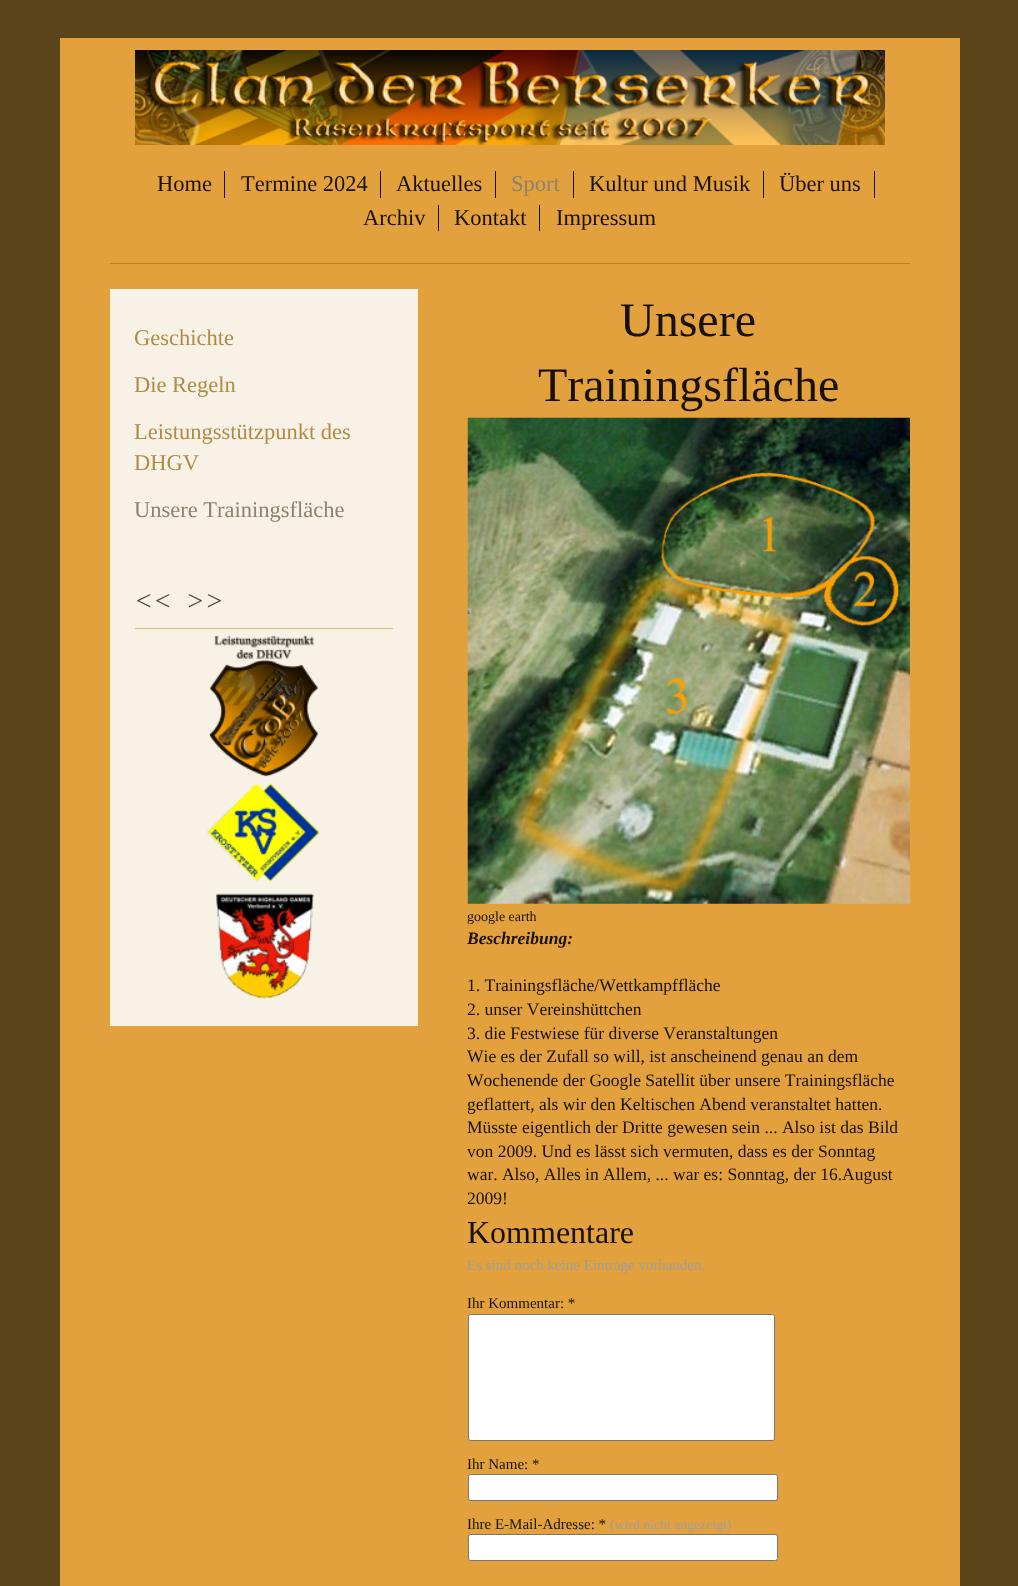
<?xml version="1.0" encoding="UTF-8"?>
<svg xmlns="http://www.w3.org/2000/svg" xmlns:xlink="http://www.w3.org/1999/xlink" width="1018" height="1586">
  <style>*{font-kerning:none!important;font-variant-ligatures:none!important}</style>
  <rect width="100%" height="100%" fill="#5d451b" />
  <rect x="60" y="38" width="900" height="1548" fill="#e3a13d" />
  <image x="135" y="50" width="750" height="95" xlink:href="image1.png" />
  <rect x="110" y="263" width="800" height="1" fill="#bd7e1e" />
  <rect x="224" y="171" width="1" height="27" fill="#171006" />
  <rect x="380" y="171" width="1" height="27" fill="#171006" />
  <rect x="495" y="171" width="1" height="27" fill="#171006" />
  <rect x="573" y="171" width="1" height="27" fill="#171006" />
  <rect x="763" y="171" width="1" height="27" fill="#171006" />
  <rect x="874" y="171" width="1" height="27" fill="#171006" />
  <rect x="438" y="205" width="1" height="26" fill="#171006" />
  <rect x="539" y="205" width="1" height="26" fill="#171006" />
  <rect x="110" y="289" width="308" height="737" fill="#f7f1e6" />
  <rect x="135" y="628" width="258" height="1" fill="#d6b77e" />
  <image x="208" y="635" width="111" height="142" xlink:href="image2.png" />
  <image x="207" y="782" width="113" height="101" xlink:href="image3.png" />
  <image x="215" y="893" width="99" height="106" xlink:href="image4.png" />
  <image x="467" y="417" width="443" height="487" xlink:href="image5.png" />
  <rect x="468.5" y="1314.5" width="306" height="126" rx="2" fill="#ffffff" stroke="#767676" />
  <rect x="468.5" y="1474.5" width="309" height="26" rx="2" fill="#ffffff" stroke="#767676" />
  <rect x="468.5" y="1534.5" width="309" height="26" rx="2" fill="#ffffff" stroke="#767676" />
  <text x="157" y="191" style="font-family: Liberation Serif; font-size: 22.5px; fill: #171006">Home</text>
  <text x="241" y="191" style="font-family: Liberation Serif; font-size: 22.5px; fill: #171006">Termine 2024</text>
  <text x="396" y="191" style="font-family: Liberation Serif; font-size: 22.5px; fill: #171006">Aktuelles</text>
  <text x="511" y="191" style="font-family: Liberation Serif; font-size: 22.5px; fill: #8b826f">Sport</text>
  <text x="589" y="191" style="font-family: Liberation Serif; font-size: 22.5px; fill: #171006">Kultur und Musik</text>
  <text x="779" y="191" style="font-family: Liberation Serif; font-size: 22.5px; fill: #171006">Über uns</text>
  <text x="363" y="225" style="font-family: Liberation Serif; font-size: 22.5px; fill: #171006">Archiv</text>
  <text x="454" y="225" style="font-family: Liberation Serif; font-size: 22.5px; fill: #171006">Kontakt</text>
  <text x="556" y="225" style="font-family: Liberation Serif; font-size: 22.5px; fill: #171006">Impressum</text>
  <text x="134" y="345" style="font-family: Liberation Serif; font-size: 22.5px; fill: #b08b47">Geschichte</text>
  <text x="134" y="392" style="font-family: Liberation Serif; font-size: 22.5px; fill: #b08b47">Die Regeln</text>
  <text x="134" y="439" style="font-family: Liberation Serif; font-size: 22.5px; fill: #b08b47">Leistungsstützpunkt des</text>
  <text x="134" y="470" style="font-family: Liberation Serif; font-size: 22.5px; fill: #b08b47">DHGV</text>
  <text x="134" y="517" style="font-family: Liberation Serif; font-size: 22.5px; fill: #8b826f">Unsere Trainingsfläche</text>
  <text x="134" y="610" style="font-family: Liberation Serif; font-size: 28px; font-style: italic; fill: #59492c" xml:space="preserve">&lt;&lt;  &gt;&gt;</text>
  <text x="620" y="336" style="font-family: Liberation Serif; font-size: 48px; fill: #171006">Unsere</text>
  <text x="538" y="401" style="font-family: Liberation Serif; font-size: 48px; fill: #171006">Trainingsfläche</text>
  <text x="467" y="921" style="font-family: Liberation Serif; font-size: 14px; fill: #171006">google earth</text>
  <text x="467" y="944" style="font-family: Liberation Serif; font-size: 17.5px; font-weight: bold; font-style: italic; fill: #171006">Beschreibung:</text>
  <text x="467" y="991" style="font-family: Liberation Serif; font-size: 17.5px; fill: #171006">1. Trainingsfläche/Wettkampffläche</text>
  <text x="467" y="1015" style="font-family: Liberation Serif; font-size: 17.5px; fill: #171006">2. unser Vereinshüttchen</text>
  <text x="467" y="1039" style="font-family: Liberation Serif; font-size: 17.5px; fill: #171006">3. die Festwiese für diverse Veranstaltungen</text>
  <text x="467" y="1062" style="font-family: Liberation Serif; font-size: 17.5px; fill: #171006">Wie es der Zufall so will, ist anscheinend genau an dem</text>
  <text x="467" y="1086" style="font-family: Liberation Serif; font-size: 17.5px; fill: #171006">Wochenende der Google Satellit über unsere Trainingsfläche</text>
  <text x="467" y="1110" style="font-family: Liberation Serif; font-size: 17.5px; fill: #171006">geflattert, als wir den Keltischen Abend veranstaltet hatten.</text>
  <text x="467" y="1133" style="font-family: Liberation Serif; font-size: 17.5px; fill: #171006">Müsste eigentlich der Dritte gewesen sein ... Also ist das Bild</text>
  <text x="467" y="1157" style="font-family: Liberation Serif; font-size: 17.5px; fill: #171006">von 2009. Und es lässt sich vermuten, dass es der Sonntag</text>
  <text x="467" y="1180" style="font-family: Liberation Serif; font-size: 17.5px; fill: #171006">war. Also, Alles in</text>
  <text x="603" y="1180" style="font-family: Liberation Serif; font-size: 17.5px; fill: #171006">Allem, ... war es: Sonntag, der 16.August</text>
  <text x="467" y="1204" style="font-family: Liberation Serif; font-size: 17.5px; fill: #171006">2009!</text>
  <text x="467" y="1243" style="font-family: Liberation Serif; font-size: 32px; fill: #171006">Kommentare</text>
  <text x="467" y="1270" style="font-family: Liberation Serif; font-size: 15px; fill: #9e9e9e">Es sind noch keine Einträge vorhanden.</text>
  <text x="467" y="1308" style="font-family: Liberation Serif; font-size: 15px; fill: #171006">Ihr Kommentar: *</text>
  <text x="467" y="1469" style="font-family: Liberation Serif; font-size: 15px; fill: #171006">Ihr Name: *</text>
  <text x="467" y="1529" style="font-family: Liberation Serif; font-size: 15px; fill: #171006">Ihre E-Mail-Adresse: *</text>
  <text x="610" y="1529" style="font-family: Liberation Serif; font-size: 13.75px; fill: #9e9e9e">(wird nicht angezeigt)</text>
</svg>
